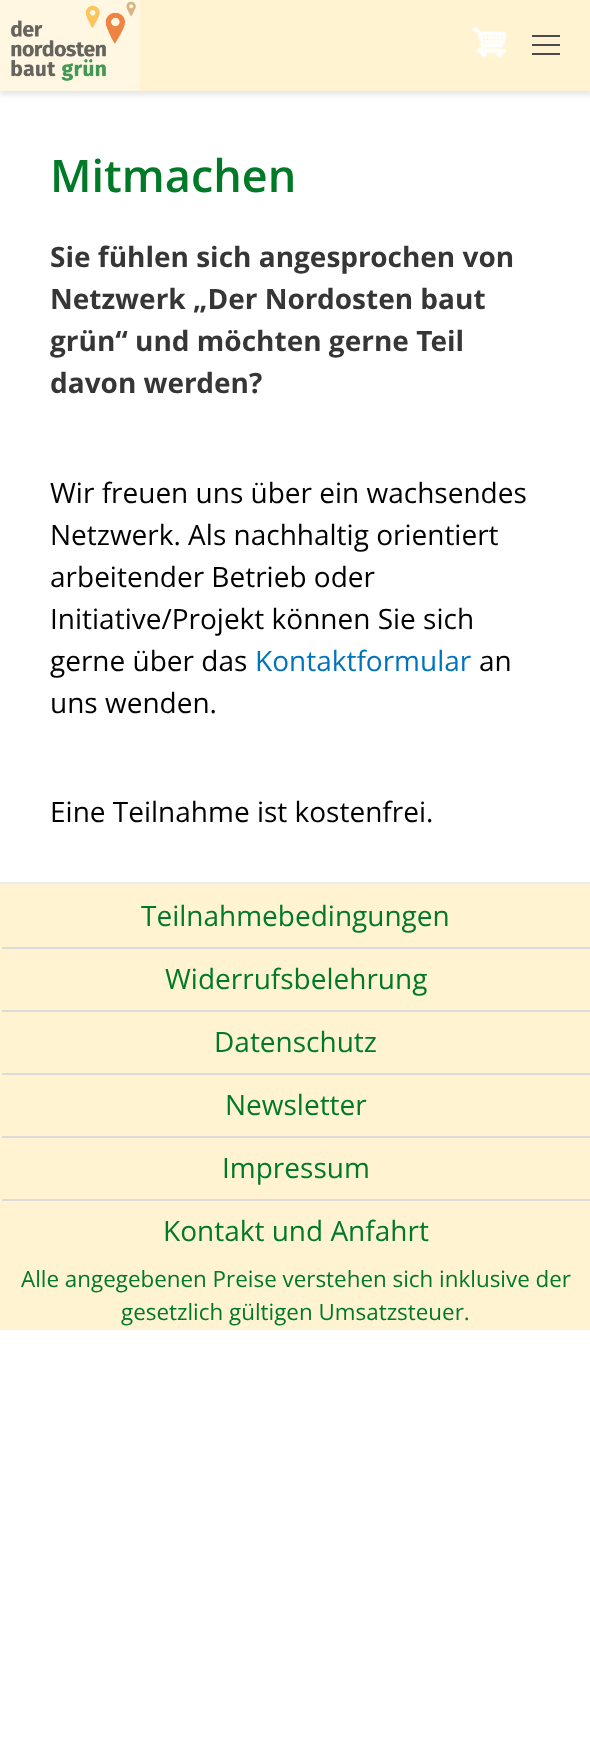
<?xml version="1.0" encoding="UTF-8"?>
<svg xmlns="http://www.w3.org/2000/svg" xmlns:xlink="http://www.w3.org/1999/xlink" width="590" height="1747">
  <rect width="100%" height="100%" fill="#ffffff" />
  <rect y="4" width="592" height="91" fill="#0a0a0a" fill-opacity="0.1" filter="blur(2.5px)" />
  <rect x="140" width="450" height="91" fill="#fff3d1" />
  <rect width="140" height="91" fill="#fff7e1" />
  <image x="11" y="1" width="125" height="80" xlink:href="image1.png" />
  <rect x="532" y="35" width="28" height="2" fill="#4a4a4a" />
  <rect x="532" y="44" width="28" height="2" fill="#4a4a4a" />
  <rect x="532" y="53" width="28" height="2" fill="#4a4a4a" />
  <image x="472" y="26" width="36" height="33" xlink:href="image2.png" />
  <rect y="882" width="590" height="2" fill="#ededed" />
  <rect y="884" width="590" height="446" fill="#fff3d1" />
  <rect x="2" y="947" width="588" height="2" fill="#dbdbdb" />
  <rect x="2" y="1010" width="588" height="2" fill="#dbdbdb" />
  <rect x="2" y="1073" width="588" height="2" fill="#dbdbdb" />
  <rect x="2" y="1136" width="588" height="2" fill="#dbdbdb" />
  <rect x="2" y="1199" width="588" height="2" fill="#dbdbdb" />
  <text x="50" y="192" style="font-family: Open Sans; font-size: 45px; font-weight: 600; fill: #007a27">Mitmachen</text>
  <text x="50" y="267" style="font-family: Open Sans; font-size: 28px; font-weight: bold; fill: #363636">Sie fühlen sich angesprochen von</text>
  <text x="50" y="309" style="font-family: Open Sans; font-size: 28px; font-weight: bold; fill: #363636">Netzwerk „Der Nordosten baut</text>
  <text x="50" y="351" style="font-family: Open Sans; font-size: 28px; font-weight: bold; fill: #363636">grün“ und möchten gerne Teil</text>
  <text x="50" y="393" style="font-family: Open Sans; font-size: 28px; font-weight: bold; fill: #363636">davon werden?</text>
  <text x="50" y="503" style="font-family: Open Sans; font-size: 28px; fill: #000000">Wir freuen uns über ein wachsendes</text>
  <text x="50" y="545" style="font-family: Open Sans; font-size: 28px; fill: #000000">Netzwerk. Als nachhaltig orientiert</text>
  <text x="50" y="587" style="font-family: Open Sans; font-size: 28px; fill: #000000">arbeitender Betrieb oder</text>
  <text x="50" y="629" style="font-family: Open Sans; font-size: 28px; fill: #000000">Initiative/Projekt können Sie sich</text>
  <text x="50" y="671" style="font-family: Open Sans; font-size: 28px; fill: #000000">gerne über das</text>
  <text x="255" y="671" style="font-family: Open Sans; font-size: 28px; fill: #0074bd">Kontaktformular</text>
  <text x="479" y="671" style="font-family: Open Sans; font-size: 28px; fill: #000000">an</text>
  <text x="50" y="713" style="font-family: Open Sans; font-size: 28px; fill: #000000">uns wenden.</text>
  <text x="50" y="822" style="font-family: Open Sans; font-size: 28px; fill: #000000">Eine Teilnahme ist kostenfrei.</text>
  <text x="141" y="926" style="font-family: Open Sans; font-size: 28px; fill: #007a27">Teilnahmebedingungen</text>
  <text x="165" y="989" style="font-family: Open Sans; font-size: 28px; fill: #007a27">Widerrufsbelehrung</text>
  <text x="214" y="1052" style="font-family: Open Sans; font-size: 28px; fill: #007a27">Datenschutz</text>
  <text x="225" y="1115" style="font-family: Open Sans; font-size: 28px; fill: #007a27">Newsletter</text>
  <text x="222" y="1178" style="font-family: Open Sans; font-size: 28px; fill: #007a27">Impressum</text>
  <text x="163" y="1241" style="font-family: Open Sans; font-size: 28px; fill: #007a27">Kontakt und Anfahrt</text>
  <text x="21" y="1287" style="font-family: Open Sans; font-size: 22.4px; fill: #007a27">Alle angegebenen Preise verstehen sich inklusive der</text>
  <text x="121" y="1320" style="font-family: Open Sans; font-size: 22.4px; fill: #007a27">gesetzlich gültigen Umsatzsteuer.</text>
</svg>
